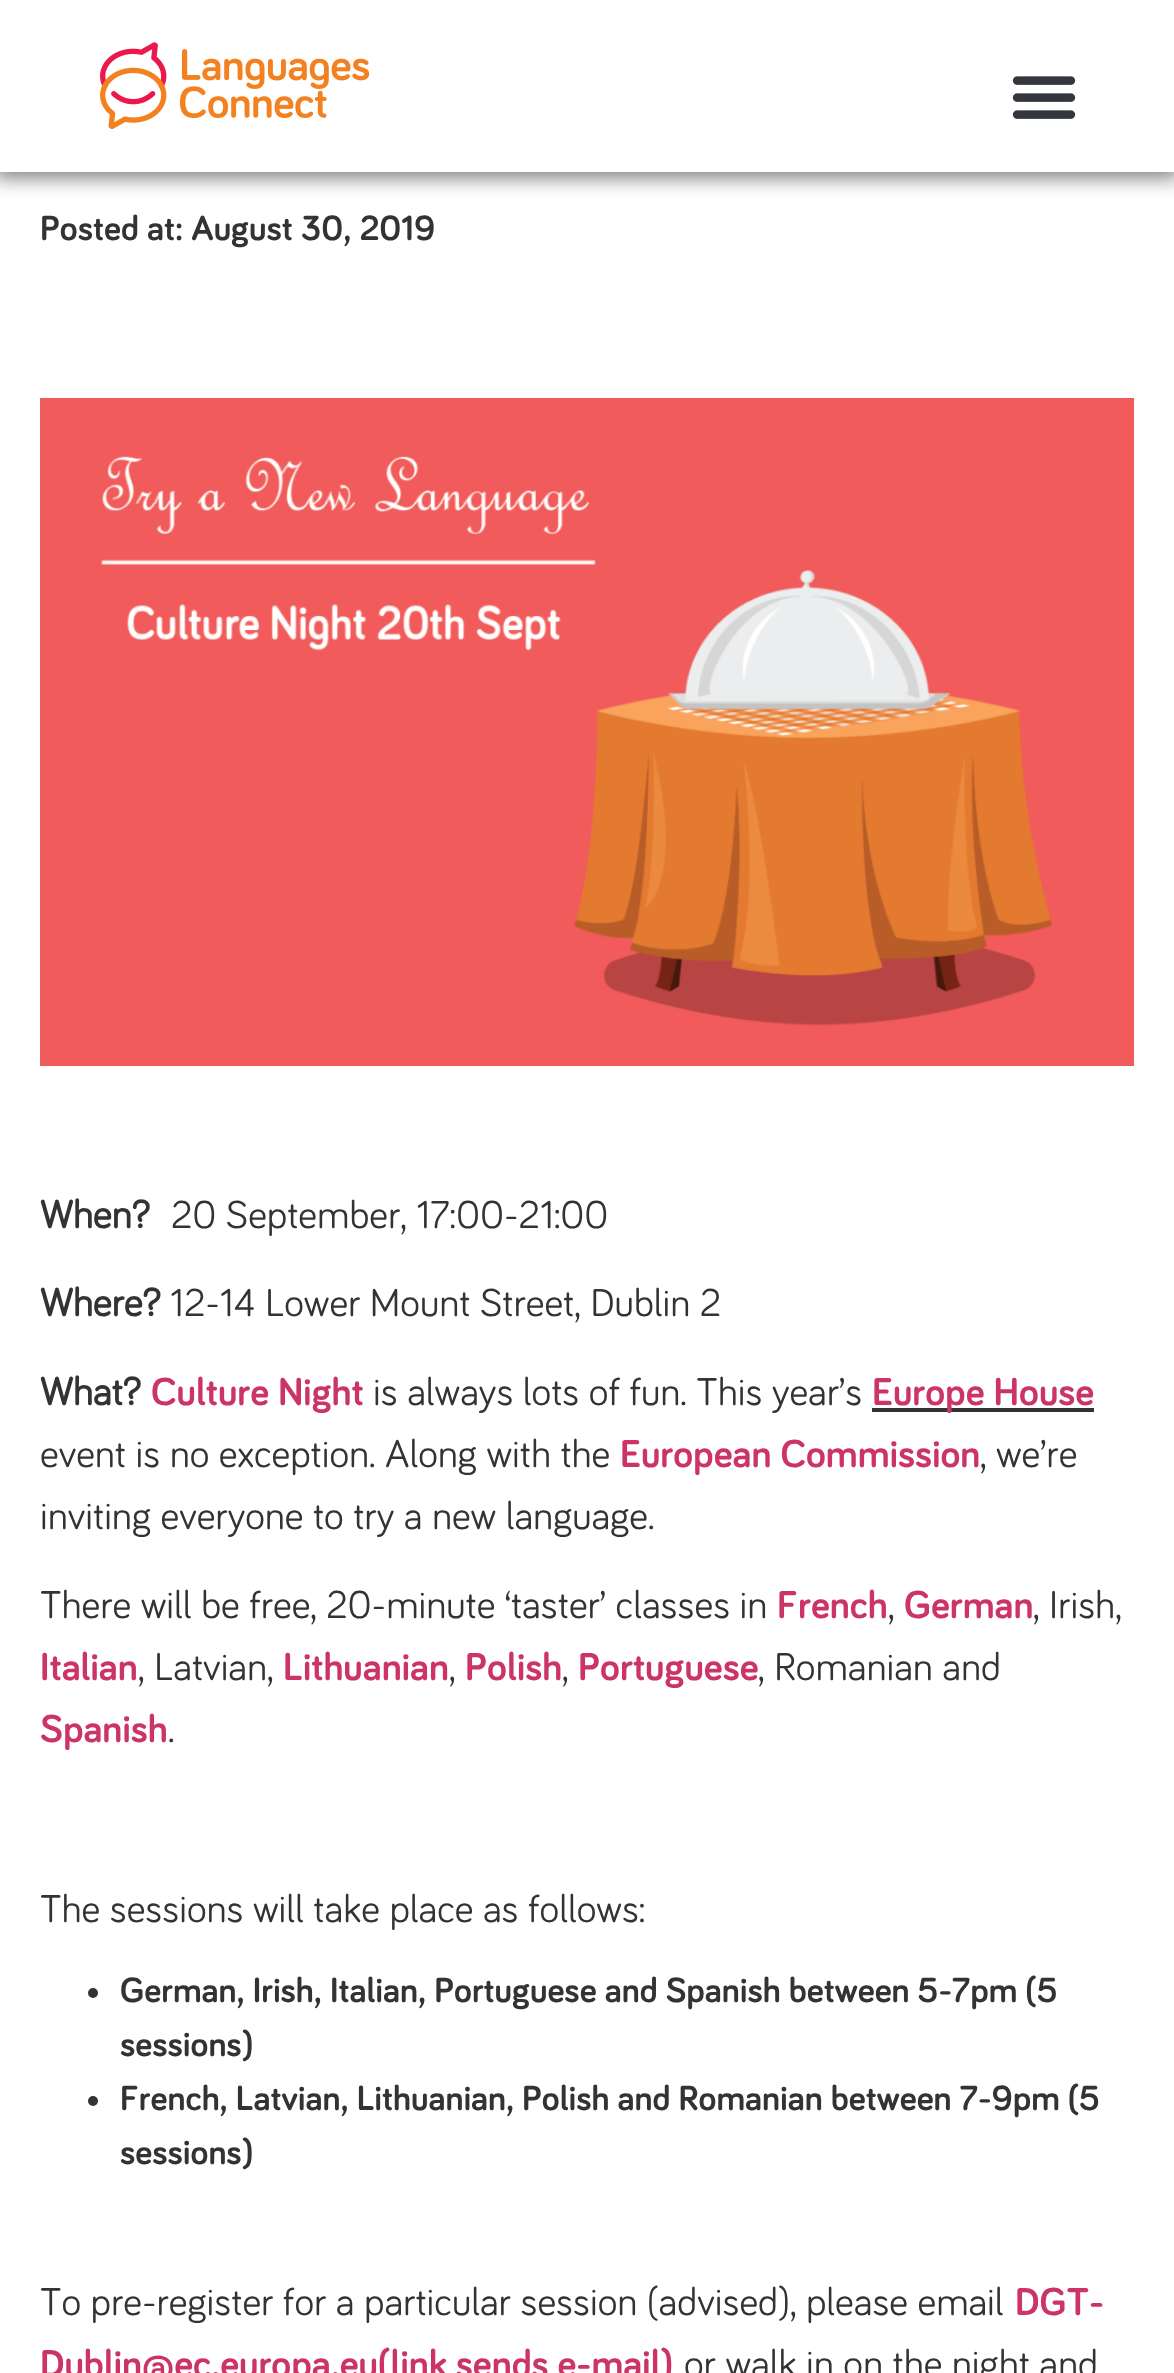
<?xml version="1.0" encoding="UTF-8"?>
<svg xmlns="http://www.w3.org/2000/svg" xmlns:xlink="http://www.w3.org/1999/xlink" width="1174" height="2373">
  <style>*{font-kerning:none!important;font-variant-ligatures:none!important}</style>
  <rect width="100%" height="100%" fill="#ffffff" />
  <rect x="-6" y="-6" width="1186" height="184" fill="#000000" fill-opacity="0.5" filter="blur(10px)" />
  <rect width="1174" height="172" fill="#ffffff" />
  <image x="100" y="42" width="270" height="88" xlink:href="image1.png" />
  <image x="1012" y="76" width="64" height="43" xlink:href="image2.png" />
  <image x="40" y="398" width="1094" height="668" xlink:href="image3.png" />
  <rect x="872" y="1408" width="222" height="4" fill="#333333" />
  <circle cx="93" cy="1993" r="5" fill="#333333" />
  <circle cx="93" cy="2101" r="5" fill="#333333" />
  <text x="40" y="240" style="font-family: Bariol; font-size: 36px; font-weight: bold; fill: #333333">Posted at: August 30, 2019</text>
  <text x="40" y="1228" style="font-family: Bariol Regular; font-size: 40px; font-weight: bold; fill: #333333">When?</text>
  <text x="171" y="1228" style="font-family: Bariol Regular; font-size: 40px; fill: #333333">20 September, 17:00-21:00</text>
  <text x="40" y="1316" style="font-family: Bariol Regular; font-size: 40px; font-weight: bold; fill: #333333">Where?</text>
  <text x="170" y="1316" style="font-family: Bariol Regular; font-size: 40px; fill: #333333">12-14 Lower Mount Street, Dublin 2</text>
  <text x="40" y="1405" style="font-family: Bariol Regular; font-size: 40px; font-weight: bold; fill: #333333">What?</text>
  <text x="151" y="1405" style="font-family: Bariol; font-size: 40px; font-weight: bold; fill: #cc3366">Culture Night</text>
  <text x="373" y="1405" style="font-family: Bariol Regular; font-size: 40px; fill: #333333">is always lots of fun. This year’s</text>
  <text x="872" y="1405" style="font-family: Bariol; font-size: 40px; font-weight: bold; fill: #cc3366">Europe House</text>
  <text x="40" y="1467" style="font-family: Bariol Regular; font-size: 40px; fill: #333333">event is no exception. Along with the</text>
  <text x="620" y="1467" style="font-family: Bariol; font-size: 40px; font-weight: bold; fill: #cc3366">European Commission</text>
  <text x="980" y="1467" style="font-family: Bariol Regular; font-size: 40px; fill: #333333">, we’re</text>
  <text x="40" y="1529" style="font-family: Bariol Regular; font-size: 40px; fill: #333333">inviting everyone to try a new language.</text>
  <text x="40" y="1618" style="font-family: Bariol Regular; font-size: 40px; fill: #333333">There will be free, 20-minute ‘taster’ classes in</text>
  <text x="777" y="1618" style="font-family: Bariol; font-size: 40px; font-weight: bold; fill: #cc3366">French</text>
  <text x="888" y="1618" style="font-family: Bariol Regular; font-size: 40px; fill: #333333">,</text>
  <text x="904" y="1618" style="font-family: Bariol; font-size: 40px; font-weight: bold; fill: #cc3366">German</text>
  <text x="1033" y="1618" style="font-family: Bariol Regular; font-size: 40px; fill: #333333">, Irish,</text>
  <text x="40" y="1680" style="font-family: Bariol; font-size: 40px; font-weight: bold; fill: #cc3366">Italian</text>
  <text x="138" y="1680" style="font-family: Bariol Regular; font-size: 40px; fill: #333333">, Latvian,</text>
  <text x="283" y="1680" style="font-family: Bariol; font-size: 40px; font-weight: bold; fill: #cc3366">Lithuanian</text>
  <text x="449" y="1680" style="font-family: Bariol Regular; font-size: 40px; fill: #333333">,</text>
  <text x="465" y="1680" style="font-family: Bariol; font-size: 40px; font-weight: bold; fill: #cc3366">Polish</text>
  <text x="562" y="1680" style="font-family: Bariol Regular; font-size: 40px; fill: #333333">,</text>
  <text x="578" y="1680" style="font-family: Bariol; font-size: 40px; font-weight: bold; fill: #cc3366">Portuguese</text>
  <text x="758" y="1680" style="font-family: Bariol Regular; font-size: 40px; fill: #333333">, Romanian and</text>
  <text x="40" y="1742" style="font-family: Bariol; font-size: 40px; font-weight: bold; fill: #cc3366">Spanish</text>
  <text x="168" y="1742" style="font-family: Bariol Regular; font-size: 40px; fill: #333333">.</text>
  <text x="40" y="1922" style="font-family: Bariol Regular; font-size: 40px; fill: #333333">The sessions will take place as follows:</text>
  <text x="120" y="2002" style="font-family: Bariol; font-size: 36px; font-weight: bold; fill: #333333">German, Irish, Italian, Portuguese and Spanish between 5-7pm (5</text>
  <text x="120" y="2056" style="font-family: Bariol; font-size: 36px; font-weight: bold; fill: #333333">sessions)</text>
  <text x="120" y="2110" style="font-family: Bariol; font-size: 36px; font-weight: bold; fill: #333333">French, Latvian, Lithuanian,</text>
  <text x="522" y="2110" style="font-family: Bariol; font-size: 36px; font-weight: bold; fill: #333333">Polish and Romanian between 7-9pm (5</text>
  <text x="120" y="2164" style="font-family: Bariol; font-size: 36px; font-weight: bold; fill: #333333">sessions)</text>
  <text x="40" y="2315" style="font-family: Bariol Regular; font-size: 40px; fill: #333333">To pre-register for a particular session (advised),</text>
  <text x="806" y="2315" style="font-family: Bariol Regular; font-size: 40px; fill: #333333">please email</text>
  <text x="1015" y="2315" style="font-family: Bariol; font-size: 40px; font-weight: bold; fill: #cc3366">DGT-</text>
  <text x="40" y="2377" style="font-family: Bariol; font-size: 40px; font-weight: bold; fill: #cc3366">Dublin@ec.europa.eu(link sends e-mail)</text>
  <text x="684" y="2377" style="font-family: Bariol Regular; font-size: 40px; fill: #333333">or walk in on the night and</text>
</svg>
